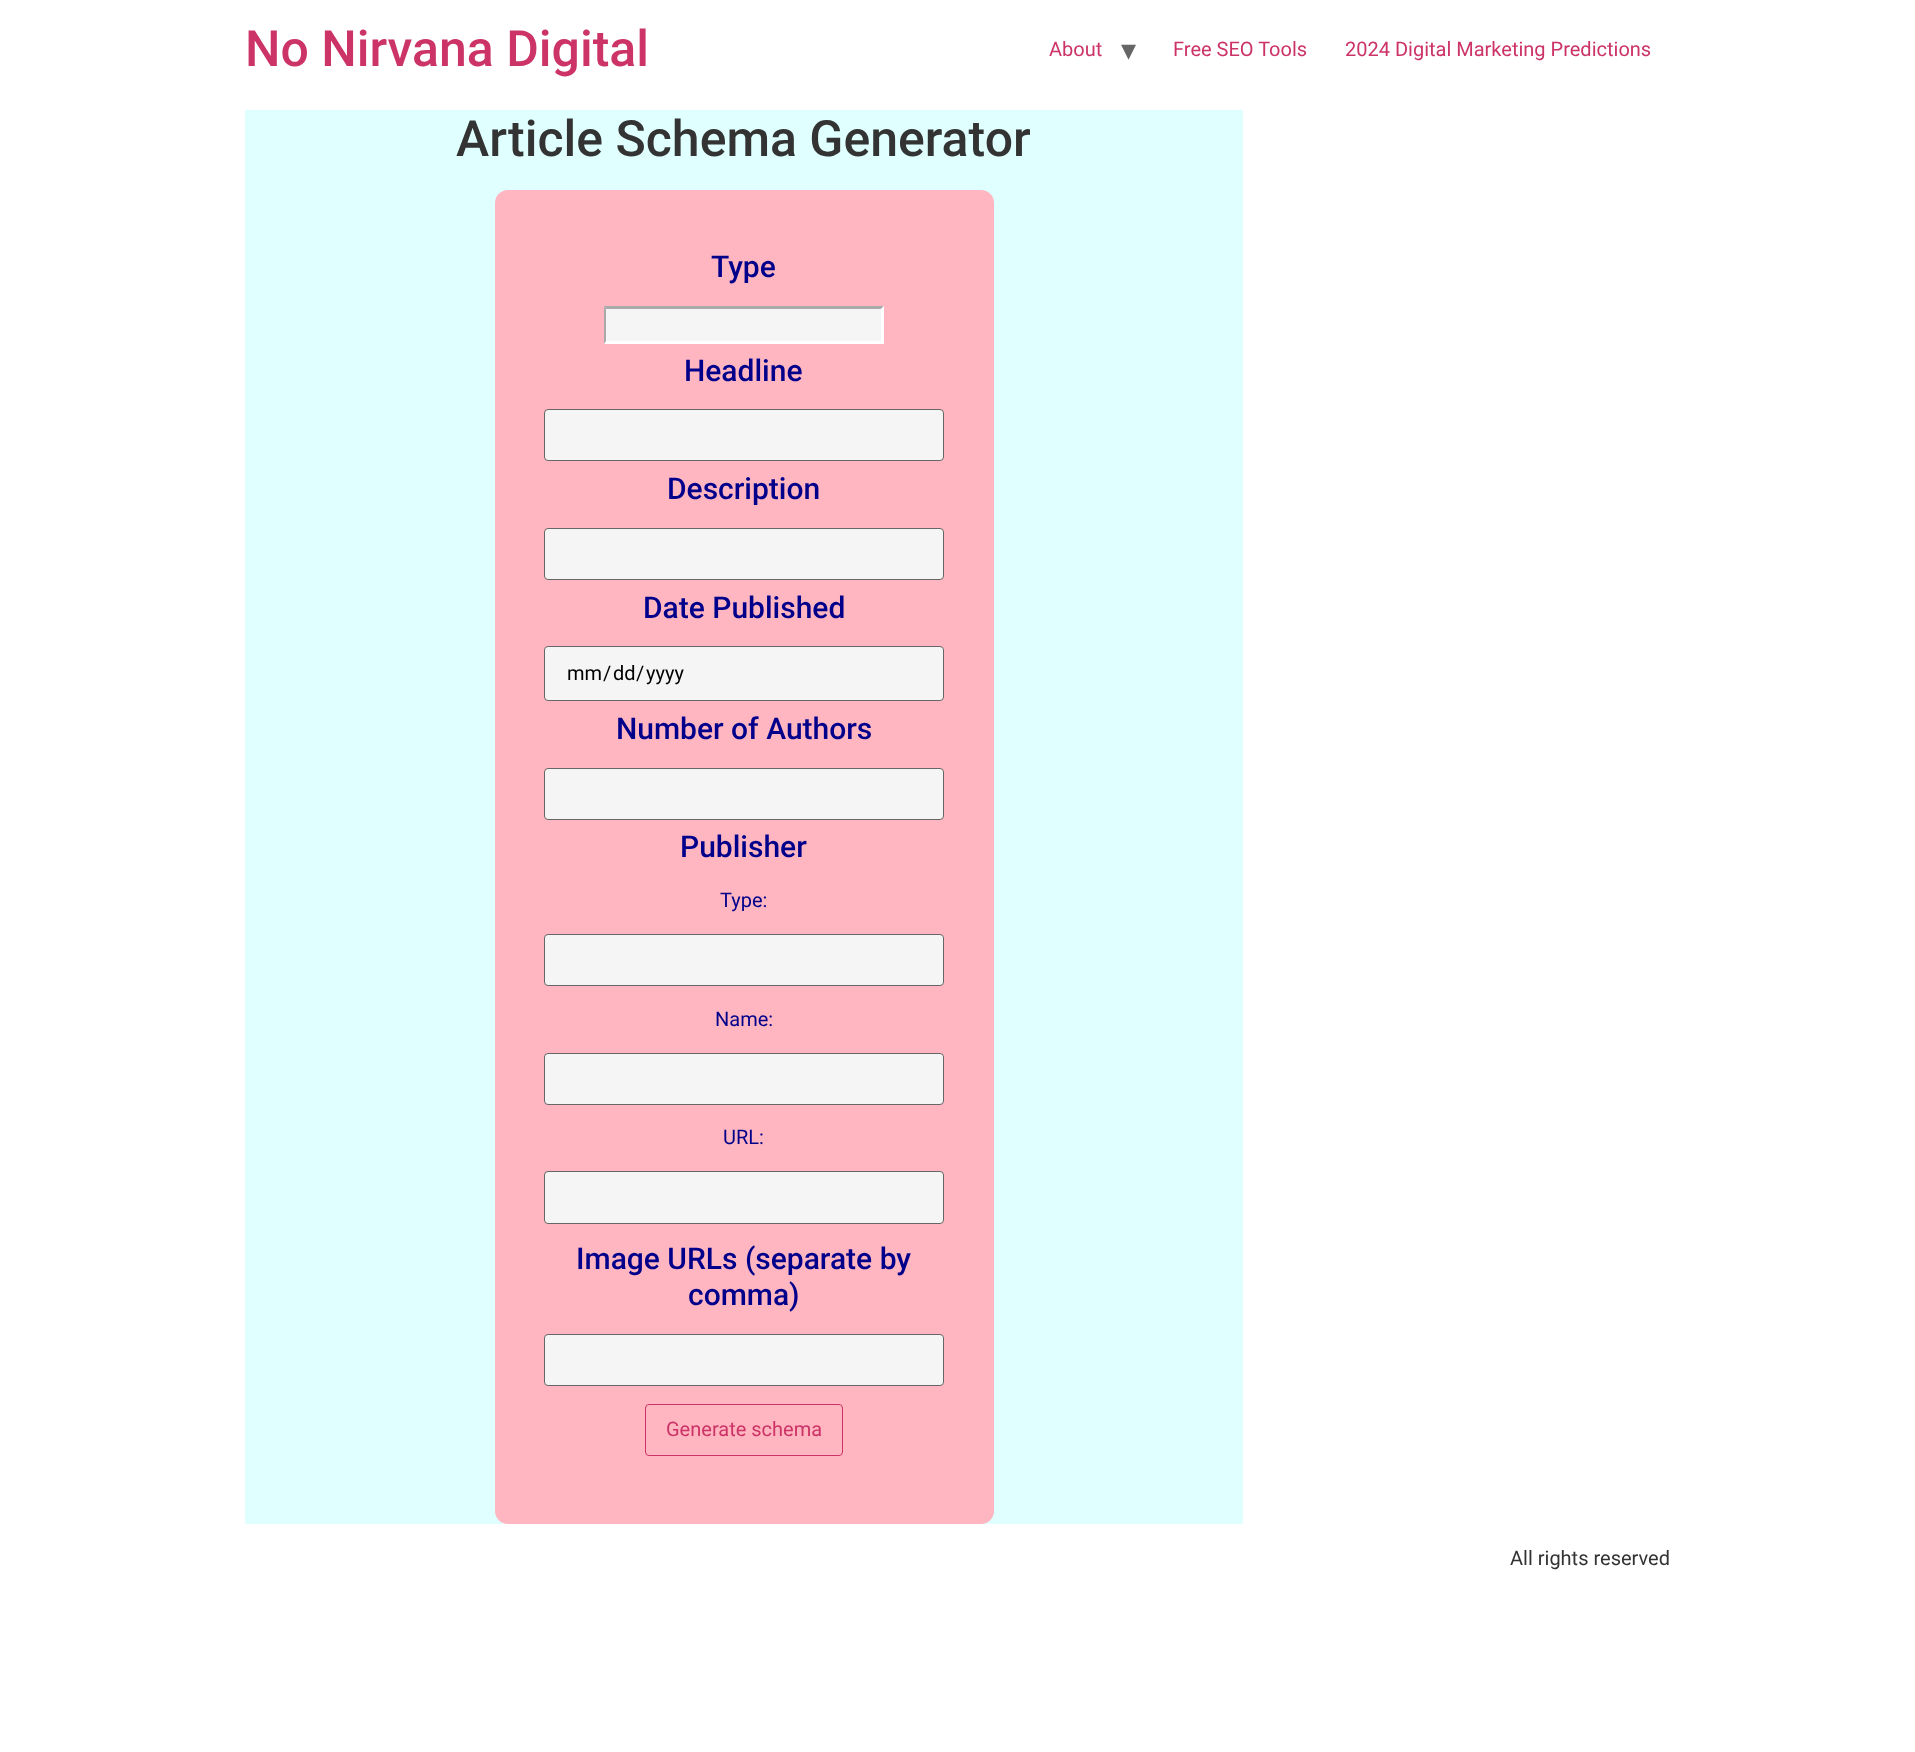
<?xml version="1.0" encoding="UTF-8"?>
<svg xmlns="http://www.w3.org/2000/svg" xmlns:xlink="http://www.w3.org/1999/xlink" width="1915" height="1752">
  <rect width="100%" height="100%" fill="#ffffff" />
  <rect x="245" y="110" width="998" height="1414" fill="#e0ffff" />
  <rect x="495" y="190" width="499" height="1334" rx="13" fill="#ffb6c1" />
  <rect x="604" y="306" width="280" height="38" fill="#f5f5f5" />
  <path d="M 604 306 h 280 l -3 3 h -275 z" fill="#aaaaaa" />
  <path d="M 884 306 v 38 l -3 -3 v -32 z" fill="#ffffff" />
  <path d="M 884 344 h -280 l 2 -3 h 275 z" fill="#ffffff" />
  <path d="M 604 344 v -38 l 2 3 v 32 z" fill="#aaaaaa" />
  <rect x="544.5" y="409.5" width="399" height="51" rx="3.5" fill="#f5f5f5" stroke="#666666" />
  <rect x="544.5" y="528.5" width="399" height="51" rx="3.5" fill="#f5f5f5" stroke="#666666" />
  <rect x="544.5" y="646.5" width="399" height="54" rx="3.5" fill="#f5f5f5" stroke="#666666" />
  <rect x="544.5" y="768.5" width="399" height="51" rx="3.5" fill="#f5f5f5" stroke="#666666" />
  <rect x="544.5" y="934.5" width="399" height="51" rx="3.5" fill="#f5f5f5" stroke="#666666" />
  <rect x="544.5" y="1053.5" width="399" height="51" rx="3.5" fill="#f5f5f5" stroke="#666666" />
  <rect x="544.5" y="1171.5" width="399" height="52" rx="3.5" fill="#f5f5f5" stroke="#666666" />
  <rect x="544.5" y="1334.5" width="399" height="51" rx="3.5" fill="#f5f5f5" stroke="#666666" />
  <rect x="645.5" y="1404.5" width="197" height="51" rx="3.5" fill="none" stroke="#cc3366" />
  <text x="245" y="66" style="font-family: Roboto; font-size: 50px; font-weight: 500; fill: #cc3366">No Nirvana Digital</text>
  <text x="1049" y="56" style="font-family: Roboto; font-size: 20px; fill: #cc3366">About</text>
  <text x="1121" y="60" style="font-family: DejaVu Sans; font-size: 30px; fill: #666666">▾</text>
  <text x="1173" y="56" style="font-family: Roboto; font-size: 20px; fill: #cc3366">Free SEO Tools</text>
  <text x="1345" y="56" style="font-family: Roboto; font-size: 20px; fill: #cc3366">2024 Digital Marketing Predictions</text>
  <text x="456" y="156" style="font-family: Roboto; font-size: 50px; font-weight: 500; fill: #333333">Article Schema Generator</text>
  <text x="711" y="277" style="font-family: Roboto; font-size: 30px; font-weight: 500; fill: #00008b">Type</text>
  <text x="684" y="381" style="font-family: Roboto; font-size: 30px; font-weight: 500; fill: #00008b">Headline</text>
  <text x="667" y="499" style="font-family: Roboto; font-size: 30px; font-weight: 500; fill: #00008b">Description</text>
  <text x="643" y="618" style="font-family: Roboto; font-size: 30px; font-weight: 500; fill: #00008b">Date Published</text>
  <text x="567" y="680" style="font-family: Roboto; font-size: 20px; fill: #000000">mm</text>
  <text x="603" y="680" style="font-family: Roboto; font-size: 20px; fill: #000000">/</text>
  <text x="613" y="680" style="font-family: Roboto; font-size: 20px; fill: #000000">dd</text>
  <text x="636" y="680" style="font-family: Roboto; font-size: 20px; fill: #000000">/</text>
  <text x="646" y="680" style="font-family: Roboto; font-size: 20px; fill: #000000">yyyy</text>
  <text x="616" y="739" style="font-family: Roboto; font-size: 30px; font-weight: 500; fill: #00008b">Number of Authors</text>
  <text x="680" y="857" style="font-family: Roboto; font-size: 30px; font-weight: 500; fill: #00008b">Publisher</text>
  <text x="720" y="907" style="font-family: Roboto; font-size: 20px; fill: #00008b">Type:</text>
  <text x="715" y="1026" style="font-family: Roboto; font-size: 20px; fill: #00008b">Name:</text>
  <text x="723" y="1144" style="font-family: Roboto; font-size: 20px; fill: #00008b">URL:</text>
  <text x="576" y="1269" style="font-family: Roboto; font-size: 30px; font-weight: 500; fill: #00008b">Image URLs (separate by</text>
  <text x="688" y="1305" style="font-family: Roboto; font-size: 30px; font-weight: 500; fill: #00008b">comma)</text>
  <text x="666" y="1436" style="font-family: Roboto; font-size: 20px; fill: #cc3366">Generate schema</text>
  <text x="1510" y="1565" style="font-family: Roboto; font-size: 20px; fill: #333333">All rights reserved</text>
</svg>
